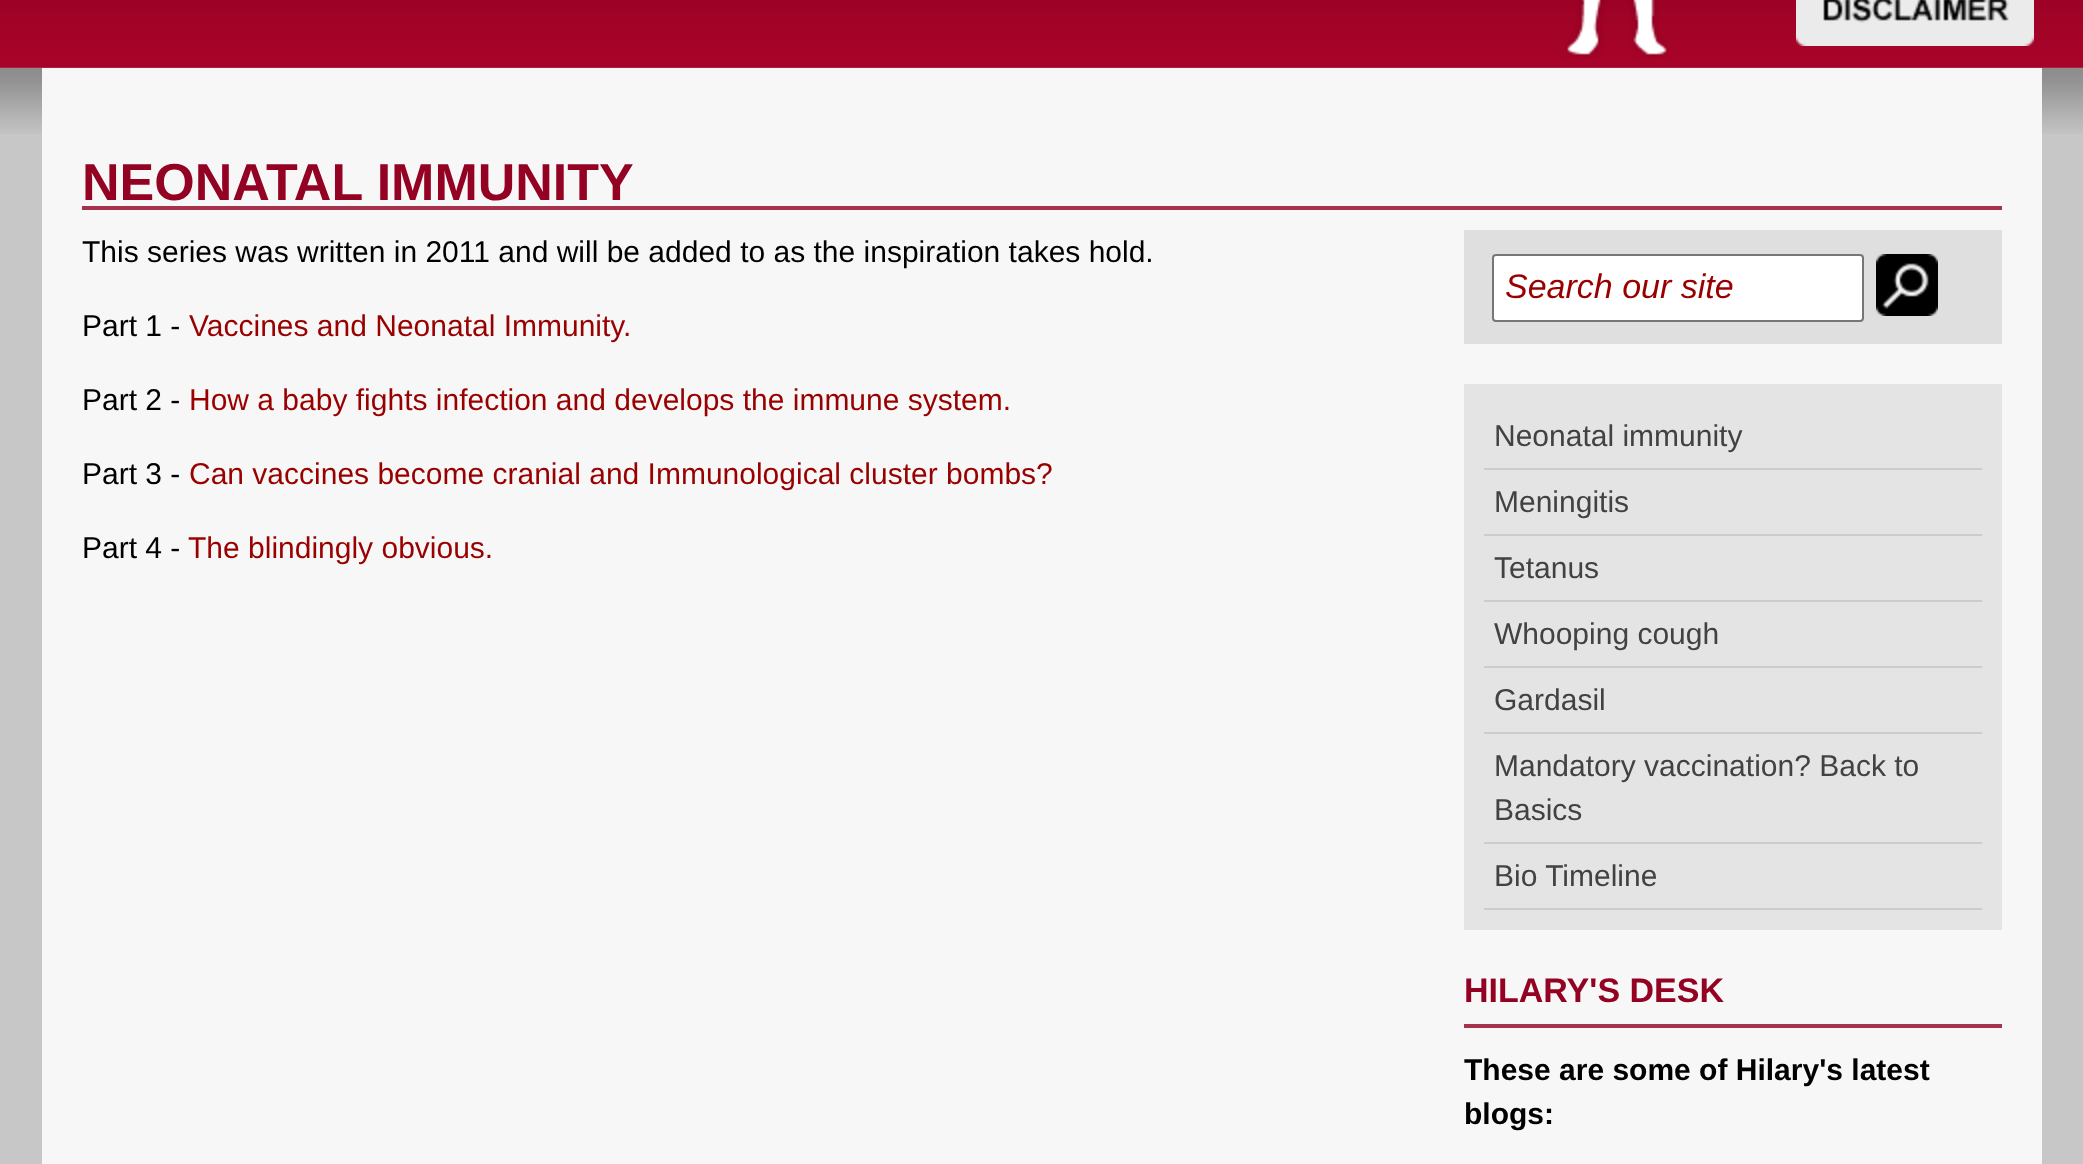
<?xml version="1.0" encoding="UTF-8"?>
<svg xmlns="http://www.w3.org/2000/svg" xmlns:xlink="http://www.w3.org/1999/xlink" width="2083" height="1164">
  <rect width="100%" height="100%" fill="#c7c7c7" />
  <image x="0" y="0" width="2083" height="134" xlink:href="image1.png" />
  <image x="1565" y="0" width="103" height="59" xlink:href="image2.png" />
  <image x="1796" y="0" width="238" height="46" xlink:href="image3.png" />
  <rect y="68" width="2083" height="1" fill="#8c8c8c" />
  <rect x="42" y="68" width="2000" height="1096" fill="#f7f7f7" />
  <rect x="82" y="206" width="1920" height="4" fill="#a5334d" />
  <rect x="1464" y="230" width="538" height="114" fill="#dfdfdf" />
  <rect x="1493" y="255" width="370" height="66" rx="3" fill="#ffffff" stroke="#767676" stroke-width="2" />
  <image x="1876" y="254" width="62" height="62" xlink:href="image4.png" />
  <rect x="1464" y="384" width="538" height="546" fill="#e4e4e4" />
  <rect x="1484" y="468" width="498" height="2" fill="#cccccc" />
  <rect x="1484" y="534" width="498" height="2" fill="#cccccc" />
  <rect x="1484" y="600" width="498" height="2" fill="#cccccc" />
  <rect x="1484" y="666" width="498" height="2" fill="#cccccc" />
  <rect x="1484" y="732" width="498" height="2" fill="#cccccc" />
  <rect x="1484" y="842" width="498" height="2" fill="#cccccc" />
  <rect x="1484" y="908" width="498" height="2" fill="#cccccc" />
  <rect x="1464" y="1024" width="538" height="4" fill="#a5334d" />
  <text x="82" y="200" style="font-family: Liberation Sans; font-size: 52px; font-weight: bold; fill: #940223">NEONATAL IMMUNITY</text>
  <text x="82" y="262" style="font-family: Liberation Sans; font-size: 30px; fill: #000000">This series was written in 2011 and will be added to as the inspiration takes hold.</text>
  <text x="82" y="336" style="font-family: Liberation Sans; font-size: 30px; fill: #000000">Part 1 -</text>
  <text x="189" y="336" style="font-family: Liberation Sans; font-size: 30px; fill: #990000">Vaccines and Neonatal Immunity.</text>
  <text x="82" y="410" style="font-family: Liberation Sans; font-size: 30px; fill: #000000">Part 2 -</text>
  <text x="189" y="410" style="font-family: Liberation Sans; font-size: 30px; fill: #990000">How a baby fights infection and develops the immune system.</text>
  <text x="82" y="484" style="font-family: Liberation Sans; font-size: 30px; fill: #000000">Part 3 -</text>
  <text x="189" y="484" style="font-family: Liberation Sans; font-size: 30px; fill: #990000">Can vaccines become cranial and Immunological cluster bombs?</text>
  <text x="82" y="558" style="font-family: Liberation Sans; font-size: 30px; fill: #000000">Part 4 -</text>
  <text x="188" y="558" style="font-family: Liberation Sans; font-size: 30px; fill: #990000">The blindingly obvious.</text>
  <text x="1505" y="298" style="font-family: Liberation Sans; font-size: 34px; font-style: italic; fill: #990000">Search our site</text>
  <text x="1494" y="446" style="font-family: Liberation Sans; font-size: 30px; fill: #424242">Neonatal immunity</text>
  <text x="1494" y="512" style="font-family: Liberation Sans; font-size: 30px; fill: #424242">Meningitis</text>
  <text x="1494" y="578" style="font-family: Liberation Sans; font-size: 30px; fill: #424242">Tetanus</text>
  <text x="1494" y="644" style="font-family: Liberation Sans; font-size: 30px; fill: #424242">Whooping cough</text>
  <text x="1494" y="710" style="font-family: Liberation Sans; font-size: 30px; fill: #424242">Gardasil</text>
  <text x="1494" y="776" style="font-family: Liberation Sans; font-size: 30px; fill: #424242">Mandatory vaccination? Back to</text>
  <text x="1494" y="820" style="font-family: Liberation Sans; font-size: 30px; fill: #424242">Basics</text>
  <text x="1494" y="886" style="font-family: Liberation Sans; font-size: 30px; fill: #424242">Bio Timeline</text>
  <text x="1464" y="1002" style="font-family: Liberation Sans; font-size: 34px; font-weight: bold; fill: #940223">HILARY'S DESK</text>
  <text x="1464" y="1080" style="font-family: Liberation Sans; font-size: 30px; font-weight: bold; fill: #000000">These are some of Hilary's latest</text>
  <text x="1464" y="1124" style="font-family: Liberation Sans; font-size: 30px; font-weight: bold; fill: #000000">blogs:</text>
</svg>
